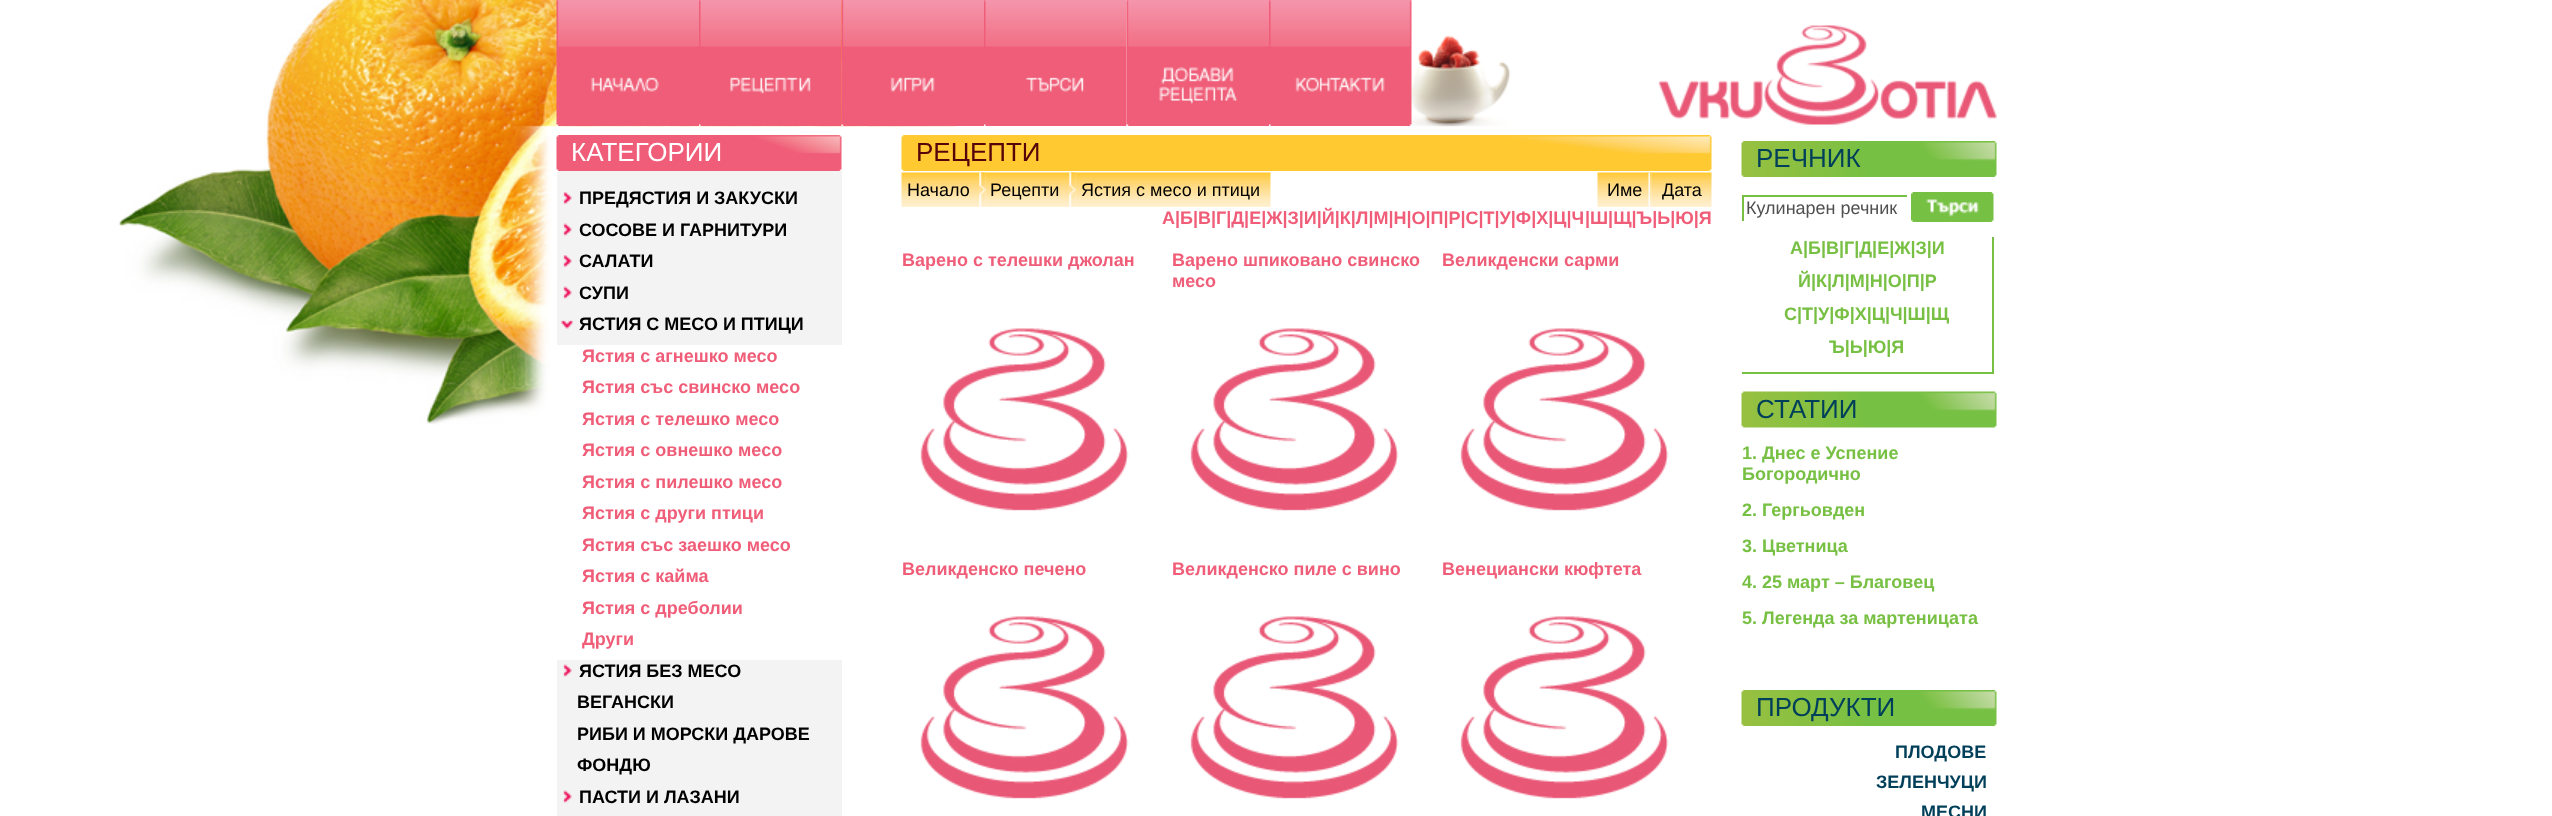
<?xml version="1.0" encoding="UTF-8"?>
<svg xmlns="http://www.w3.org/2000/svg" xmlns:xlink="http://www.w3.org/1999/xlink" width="2552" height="816">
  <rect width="100%" height="100%" fill="#ffffff" />
  <image x="118" y="0" width="1393" height="425" xlink:href="image1.png" />
  <image x="556" y="0" width="143" height="126" xlink:href="image2.png" />
  <image x="699" y="0" width="143" height="126" xlink:href="image3.png" />
  <image x="841" y="0" width="143" height="126" xlink:href="image4.png" />
  <image x="984" y="0" width="143" height="126" xlink:href="image5.png" />
  <image x="1126" y="0" width="143" height="126" xlink:href="image6.png" />
  <image x="1269" y="0" width="143" height="126" xlink:href="image7.png" />
  <image x="1658" y="25" width="339" height="100" xlink:href="image8.png" />
  <image x="556" y="135" width="286" height="36" xlink:href="image9.png" />
  <rect x="557" y="171" width="285" height="174" fill="#f3f3f4" />
  <image x="563" y="192" width="9" height="12" xlink:href="image10.png" />
  <image x="563" y="223" width="9" height="13" xlink:href="image11.png" />
  <image x="563" y="255" width="9" height="12" xlink:href="image10.png" />
  <image x="563" y="286" width="9" height="13" xlink:href="image11.png" />
  <image x="561" y="320" width="12" height="9" xlink:href="image12.png" />
  <rect x="557" y="660" width="285" height="156" fill="#f3f3f4" />
  <image x="563" y="664" width="9" height="13" xlink:href="image11.png" />
  <image x="563" y="790" width="9" height="13" xlink:href="image11.png" />
  <image x="901" y="135" width="811" height="36" xlink:href="image13.png" />
  <image x="901" y="172" width="79" height="35" xlink:href="image14.png" />
  <image x="979" y="172" width="7" height="35" xlink:href="image15.png" />
  <image x="985" y="172" width="85" height="35" xlink:href="image17.png" />
  <image x="979" y="172" width="7" height="35" xlink:href="image16.png" />
  <image x="1069" y="172" width="7" height="35" xlink:href="image15.png" />
  <image x="1075" y="172" width="196" height="35" xlink:href="image18.png" />
  <image x="1069" y="172" width="7" height="35" xlink:href="image16.png" />
  <image x="1597" y="172" width="50" height="35" xlink:href="image19.png" />
  <image x="1647" y="172" width="5" height="35" xlink:href="image20.png" />
  <image x="1651" y="172" width="61" height="35" xlink:href="image22.png" />
  <image x="1647" y="172" width="5" height="35" xlink:href="image21.png" />
  <image x="920" y="328" width="209" height="183" xlink:href="image23.png" />
  <image x="1190" y="328" width="209" height="183" xlink:href="image24.png" />
  <image x="1460" y="328" width="209" height="183" xlink:href="image25.png" />
  <image x="920" y="616" width="209" height="183" xlink:href="image23.png" />
  <image x="1190" y="616" width="209" height="183" xlink:href="image24.png" />
  <image x="1460" y="616" width="209" height="183" xlink:href="image25.png" />
  <image x="1741" y="141" width="256" height="36" xlink:href="image26.png" />
  <rect x="1742" y="195" width="165" height="2" fill="#77c043" />
  <rect x="1742" y="195" width="2" height="26" fill="#77c043" />
  <image x="1911" y="192" width="83" height="30" xlink:href="image27.png" />
  <rect x="1992" y="237" width="2" height="137" fill="#77c043" />
  <rect x="1742" y="372" width="252" height="2" fill="#77c043" />
  <image x="1741" y="391" width="256" height="37" xlink:href="image28.png" />
  <image x="1741" y="690" width="256" height="36" xlink:href="image26.png" />
  <text x="571" y="161" style="font-family: Liberation Sans; font-size: 26px; fill: #ffffff">КАТЕГОРИИ</text>
  <text x="579" y="204" style="font-family: Liberation Sans; font-size: 18px; font-weight: bold; fill: #000000">ПРЕДЯСТИЯ И ЗАКУСКИ</text>
  <text x="579" y="236" style="font-family: Liberation Sans; font-size: 18px; font-weight: bold; fill: #000000">СОСОВЕ И ГАРНИТУРИ</text>
  <text x="579" y="267" style="font-family: Liberation Sans; font-size: 18px; font-weight: bold; fill: #000000">САЛАТИ</text>
  <text x="579" y="299" style="font-family: Liberation Sans; font-size: 18px; font-weight: bold; fill: #000000">СУПИ</text>
  <text x="579" y="330" style="font-family: Liberation Sans; font-size: 18px; font-weight: bold; fill: #000000">ЯСТИЯ С МЕСО И ПТИЦИ</text>
  <text x="582" y="362" style="font-family: Liberation Sans; font-size: 18px; font-weight: bold; fill: #f05d78">Ястия с агнешко месо</text>
  <text x="582" y="393" style="font-family: Liberation Sans; font-size: 18px; font-weight: bold; fill: #f05d78">Ястия със свинско месо</text>
  <text x="582" y="425" style="font-family: Liberation Sans; font-size: 18px; font-weight: bold; fill: #f05d78">Ястия с телешко месо</text>
  <text x="582" y="456" style="font-family: Liberation Sans; font-size: 18px; font-weight: bold; fill: #f05d78">Ястия с овнешко месо</text>
  <text x="582" y="488" style="font-family: Liberation Sans; font-size: 18px; font-weight: bold; fill: #f05d78">Ястия с пилешко месо</text>
  <text x="582" y="519" style="font-family: Liberation Sans; font-size: 18px; font-weight: bold; fill: #f05d78">Ястия с други птици</text>
  <text x="582" y="551" style="font-family: Liberation Sans; font-size: 18px; font-weight: bold; fill: #f05d78">Ястия със заешко месо</text>
  <text x="582" y="582" style="font-family: Liberation Sans; font-size: 18px; font-weight: bold; fill: #f05d78">Ястия с кайма</text>
  <text x="582" y="614" style="font-family: Liberation Sans; font-size: 18px; font-weight: bold; fill: #f05d78">Ястия с дреболии</text>
  <text x="582" y="645" style="font-family: Liberation Sans; font-size: 18px; font-weight: bold; fill: #f05d78">Други</text>
  <text x="579" y="677" style="font-family: Liberation Sans; font-size: 18px; font-weight: bold; fill: #000000">ЯСТИЯ БЕЗ МЕСО</text>
  <text x="577" y="708" style="font-family: Liberation Sans; font-size: 18px; font-weight: bold; fill: #000000">ВЕГАНСКИ</text>
  <text x="577" y="740" style="font-family: Liberation Sans; font-size: 18px; font-weight: bold; fill: #000000">РИБИ И МОРСКИ ДАРОВЕ</text>
  <text x="577" y="771" style="font-family: Liberation Sans; font-size: 18px; font-weight: bold; fill: #000000">ФОНДЮ</text>
  <text x="579" y="803" style="font-family: Liberation Sans; font-size: 18px; font-weight: bold; fill: #000000">ПАСТИ И ЛАЗАНИ</text>
  <text x="916" y="161" style="font-family: Liberation Sans; font-size: 26px; fill: #56030a">РЕЦЕПТИ</text>
  <text x="907" y="196" style="font-family: Liberation Sans; font-size: 18px; fill: #000000">Начало</text>
  <text x="990" y="196" style="font-family: Liberation Sans; font-size: 18px; fill: #000000">Рецепти</text>
  <text x="1081" y="196" style="font-family: Liberation Sans; font-size: 18px; fill: #000000">Ястия с месо и птици</text>
  <text x="1607" y="196" style="font-family: Liberation Sans; font-size: 18px; fill: #000000">Име</text>
  <text x="1662" y="196" style="font-family: Liberation Sans; font-size: 18px; fill: #000000">Дата</text>
  <text x="1162" y="224" style="font-family: Liberation Sans; font-size: 18px; font-weight: bold; fill: #f05d78">А|Б|В|Г|Д|Е|Ж|З|И|Й|К|Л|М|Н|О|П|Р|С|Т|У|Ф|Х|Ц|Ч</text>
  <text x="1585" y="224" style="font-family: Liberation Sans; font-size: 18px; font-weight: bold; fill: #f05d78">|Ш|Щ|Ъ|Ь|Ю|Я</text>
  <text x="902" y="266" style="font-family: Liberation Sans; font-size: 18px; font-weight: bold; fill: #f05d78">Варено с телешки джолан</text>
  <text x="1172" y="266" style="font-family: Liberation Sans; font-size: 18px; font-weight: bold; fill: #f05d78">Варено шпиковано свинско</text>
  <text x="1172" y="287" style="font-family: Liberation Sans; font-size: 18px; font-weight: bold; fill: #f05d78">месо</text>
  <text x="1442" y="266" style="font-family: Liberation Sans; font-size: 18px; font-weight: bold; fill: #f05d78">Великденски сарми</text>
  <text x="902" y="575" style="font-family: Liberation Sans; font-size: 18px; font-weight: bold; fill: #f05d78">Великденско печено</text>
  <text x="1172" y="575" style="font-family: Liberation Sans; font-size: 18px; font-weight: bold; fill: #f05d78">Великденско пиле с вино</text>
  <text x="1442" y="575" style="font-family: Liberation Sans; font-size: 18px; font-weight: bold; fill: #f05d78">Венециански кюфтета</text>
  <text x="1756" y="167" style="font-family: Liberation Sans; font-size: 26px; fill: #003f59">РЕЧНИК</text>
  <text x="1746" y="214" style="font-family: Liberation Sans; font-size: 18px; fill: #505050">Кулинарен речник</text>
  <text x="1790" y="254" style="font-family: Liberation Sans; font-size: 18px; font-weight: bold; fill: #77c043">А|Б|В|Г|Д|Е|Ж|З|И</text>
  <text x="1798" y="287" style="font-family: Liberation Sans; font-size: 18px; font-weight: bold; fill: #77c043">Й|К|Л|М|Н|О|П|Р</text>
  <text x="1784" y="320" style="font-family: Liberation Sans; font-size: 18px; font-weight: bold; fill: #77c043">С|Т|У|Ф|Х|Ц|Ч|Ш|Щ</text>
  <text x="1829" y="353" style="font-family: Liberation Sans; font-size: 18px; font-weight: bold; fill: #77c043">Ъ|Ь|Ю|Я</text>
  <text x="1756" y="418" style="font-family: Liberation Sans; font-size: 26px; fill: #003f59">СТАТИИ</text>
  <text x="1742" y="459" style="font-family: Liberation Sans; font-size: 18px; font-weight: bold; fill: #77c043">1. Днес е Успение</text>
  <text x="1742" y="480" style="font-family: Liberation Sans; font-size: 18px; font-weight: bold; fill: #77c043">Богородично</text>
  <text x="1742" y="516" style="font-family: Liberation Sans; font-size: 18px; font-weight: bold; fill: #77c043">2. Гергьовден</text>
  <text x="1742" y="552" style="font-family: Liberation Sans; font-size: 18px; font-weight: bold; fill: #77c043">3. Цветница</text>
  <text x="1742" y="588" style="font-family: Liberation Sans; font-size: 18px; font-weight: bold; fill: #77c043">4. 25 март – Благовец</text>
  <text x="1742" y="624" style="font-family: Liberation Sans; font-size: 18px; font-weight: bold; fill: #77c043">5. Легенда за мартеницата</text>
  <text x="1756" y="716" style="font-family: Liberation Sans; font-size: 26px; fill: #003f59">ПРОДУКТИ</text>
  <text x="1895" y="758" style="font-family: Liberation Sans; font-size: 18px; font-weight: bold; fill: #003f59">ПЛОДОВЕ</text>
  <text x="1876" y="788" style="font-family: Liberation Sans; font-size: 18px; font-weight: bold; fill: #003f59">ЗЕЛЕНЧУЦИ</text>
  <text x="1921" y="818" style="font-family: Liberation Sans; font-size: 18px; font-weight: bold; fill: #003f59">МЕСНИ</text>
</svg>
